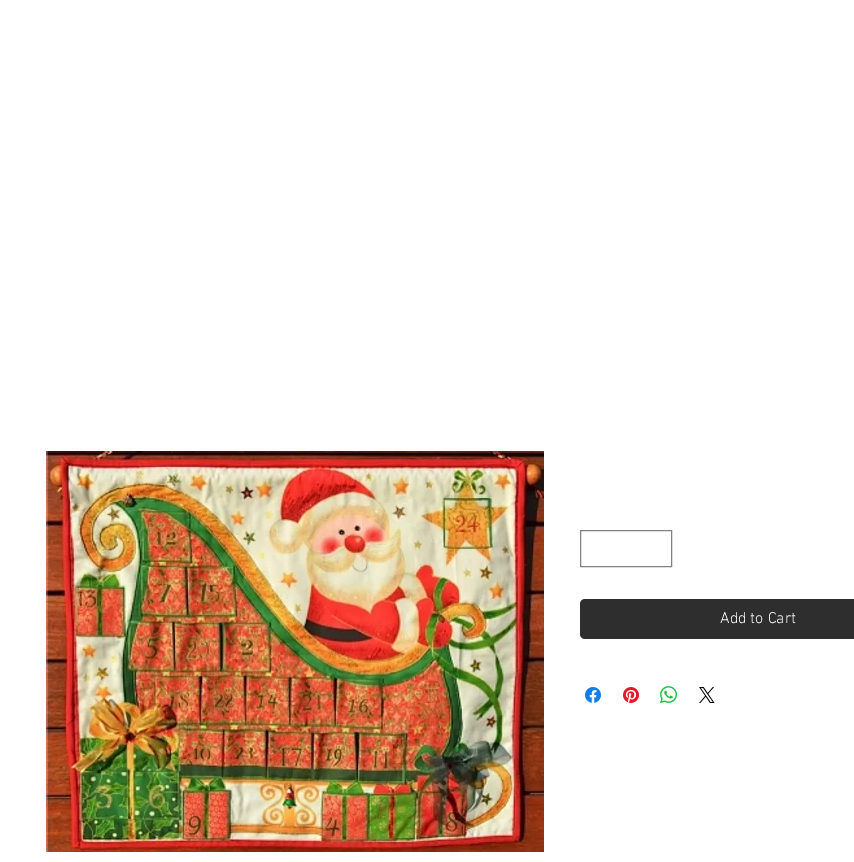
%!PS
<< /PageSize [854 862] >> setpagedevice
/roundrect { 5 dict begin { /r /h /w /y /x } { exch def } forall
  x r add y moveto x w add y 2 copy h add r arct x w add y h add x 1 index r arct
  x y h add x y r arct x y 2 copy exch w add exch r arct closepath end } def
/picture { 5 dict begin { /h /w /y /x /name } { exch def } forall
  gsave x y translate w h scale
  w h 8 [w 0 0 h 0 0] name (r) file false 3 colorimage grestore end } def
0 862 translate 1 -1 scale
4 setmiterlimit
1 setgray
0 0 854 862 rectfill
(img1.rgb) 46 451 498 401 picture
0.51 setgray
580.5 530.5 91 36 rectstroke
0.184 0.18 0.18 setrgbcolor
580 599 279 40 5 roundrect fill
/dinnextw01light-Light [16 0 0 -16 0 0] selectfont
1 setgray
720 623 moveto (Add to Cart) show
(img2.rgb) 585 687 16 16 picture
(img3.rgb) 623 687 16 16 picture
(img4.rgb) 660 686 17 17 picture
(img5.rgb) 699 687 16 16 picture
showpage
